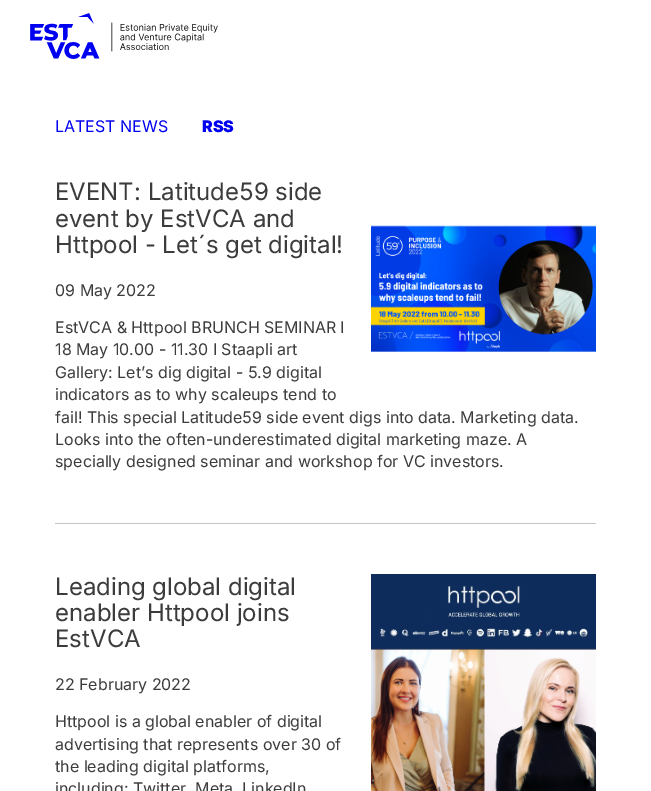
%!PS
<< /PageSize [651 791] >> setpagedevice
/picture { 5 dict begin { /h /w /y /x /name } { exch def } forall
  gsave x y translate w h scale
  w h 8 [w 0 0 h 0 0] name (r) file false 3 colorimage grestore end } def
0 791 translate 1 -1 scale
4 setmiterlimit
1 setgray
0 0 651 791 rectfill
(img1.rgb) 30 13 188 46 picture
/Inter-Regular [16 0 0 -16 0 0] selectfont
0 0 0.941 setrgbcolor
55 132 moveto (LATEST NEWS) show
/Inter-Black [16 0 0 -16 0 0] selectfont
202 132 moveto (RSS) show
0.769 setgray
55 523 541 1 rectfill
/Inter-Regular [24 0 0 -24 0 0] selectfont
0.235 setgray
55 200 moveto (EVENT: Latitude59 side) show
55 227 moveto (event by EstVCA and) show
55 253 moveto (Httpool - Let´s get digital!) show
(img2.rgb) 371 225 225 127 picture
/Inter-Regular [16 0 0 -16 0 0] selectfont
55 296 moveto (09 May 2022) show
55 333 moveto (EstVCA & Httpool BRUNCH SEMINAR I) show
55 355 moveto (18 May 10.00 - 11.30 I Staapli art) show
55 378 moveto (Gallery: Let’s dig digital - 5.9 digital) show
55 400 moveto (indicators as to why scaleups tend to) show
55 423 moveto (fail! This special Latitude59 side event digs into data. Marketing data.) show
55 445 moveto (Looks into the often-underestimated digital marketing maze. A) show
55 467 moveto (specially designed seminar and workshop for VC investors.) show
/Inter-Regular [24 0 0 -24 0 0] selectfont
55 595 moveto (Leading global digital) show
55 621 moveto (enabler Httpool joins) show
55 647 moveto (EstVCA) show
(img3.rgb) 371 574 225 217 picture
/Inter-Regular [16 0 0 -16 0 0] selectfont
55 690 moveto (22 February 2022) show
55 727 moveto (Httpool is a global enabler of digital) show
55 750 moveto (advertising that represents over 30 of) show
55 772 moveto (the leading digital platforms,) show
55 794 moveto (including: Twitter, Meta, LinkedIn) show
showpage
